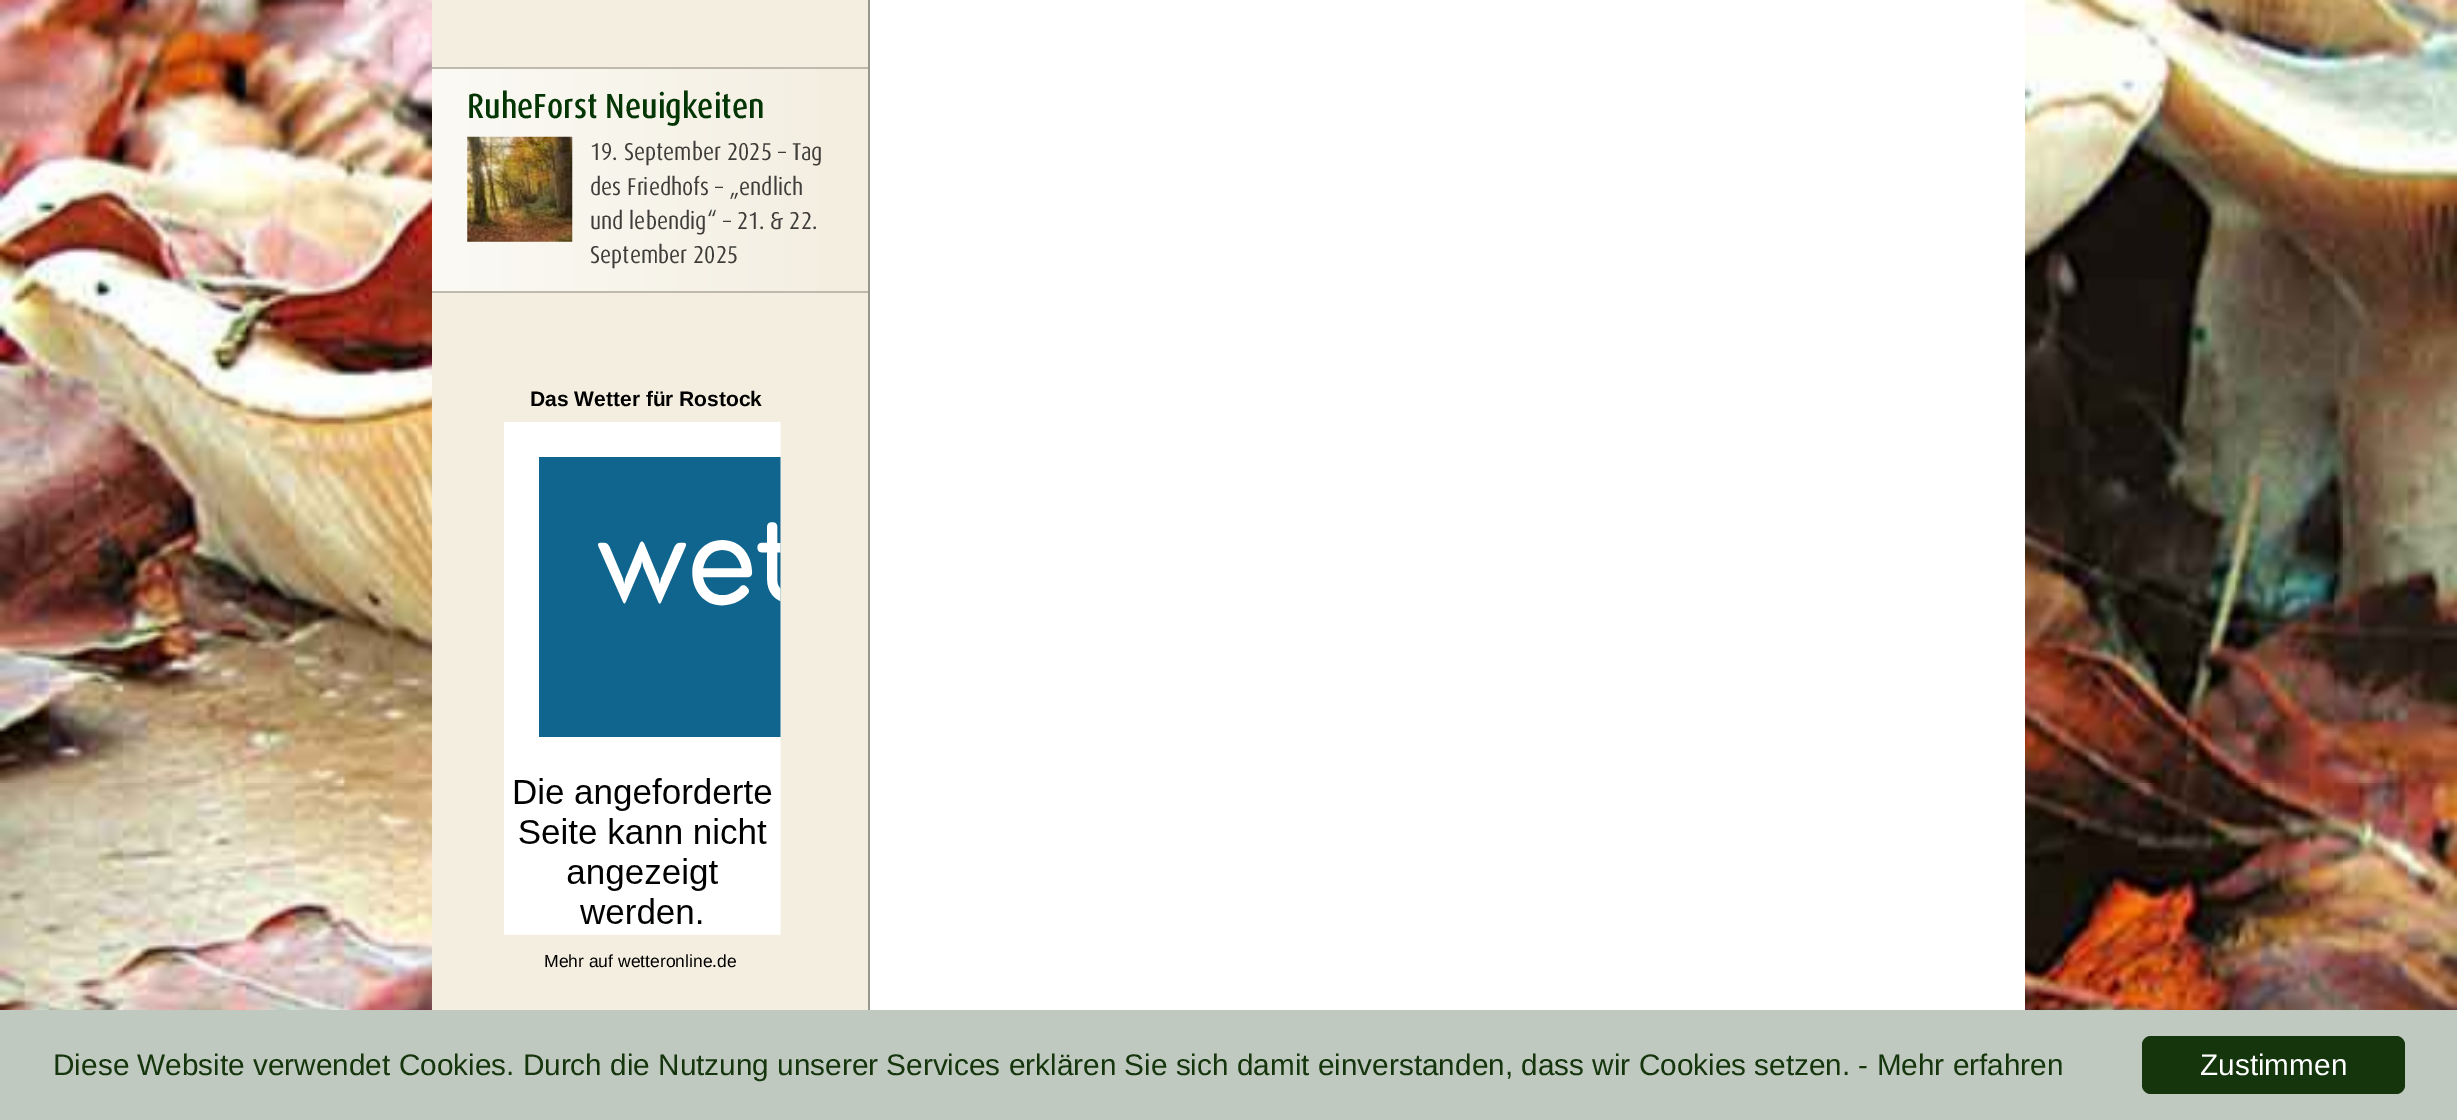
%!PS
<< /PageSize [2457 1120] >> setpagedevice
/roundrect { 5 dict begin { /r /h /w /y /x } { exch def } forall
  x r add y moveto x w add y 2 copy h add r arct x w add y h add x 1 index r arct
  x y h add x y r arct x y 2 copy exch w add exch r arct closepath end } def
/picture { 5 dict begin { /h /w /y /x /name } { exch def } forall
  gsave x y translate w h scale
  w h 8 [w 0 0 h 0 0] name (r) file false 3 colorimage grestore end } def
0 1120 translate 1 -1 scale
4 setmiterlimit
1 setgray
0 0 2457 1120 rectfill
(img1.rgb) 0 0 2457 1010 picture
0.953 0.933 0.875 setrgbcolor
432 0 436 1010 rectfill
0.6 0.588 0.553 setrgbcolor
868 0 2 1010 rectfill
gsave newpath 432 69 moveto 818 69 lineto 818 291 lineto 432 291 lineto closepath clip newpath
<< /ShadingType 2 /ColorSpace /DeviceRGB /Coords [432 179 868 179] /Extend [true true] /Function << /FunctionType 2 /Domain [0 1] /C0 [0.984 0.98 0.961] /C1 [0.953 0.933 0.875] /N 1 >> >> shfill grestore
0.745 0.722 0.678 setrgbcolor
432 67 436 2 rectfill
432 291 436 2 rectfill
/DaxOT-Medium [35 0 0 -35 0 0] selectfont
0.012 0.212 0.016 setrgbcolor
467 118 moveto (RuheForst Neuigkeiten) show
(img2.rgb) 467 136 106 106 picture
/DaxOT-Regular [24.5 0 0 -24.5 0 0] selectfont
0.243 0.239 0.224 setrgbcolor
590 160 moveto (19. September 2025 – Tag) show
590 195 moveto (des Friedhofs – „endlich) show
590 229 moveto (und lebendig“ – 21. & 22.) show
590 263 moveto (September 2025) show
/LiberationSans-Bold [21 0 0 -21 0 0] selectfont
0 setgray
530 406 moveto (Das Wetter für Rostock) show
(img3.rgb) 504 422 277 513 picture
/LiberationSans-Regular [17.5 0 0 -17.5 0 0] selectfont
544 967 moveto (Mehr auf wetteronline.de) show
1 setgray
870 0 1155 1010 rectfill
0.753 0.788 0.753 setrgbcolor
0 1010 2457 110 rectfill
/LiberationSans-Regular [29.75 0 0 -29.75 0 0] selectfont
0.082 0.208 0.051 setrgbcolor
53 1075 moveto (Diese Website verwendet Cookies. Durch die Nutzung unserer Services erklären Sie sich damit einverstanden, dass wir Cookies setzen. - Mehr erfahren) show
2142 1036 263 58 9 roundrect fill
1 setgray
2200 1075 moveto (Zustimmen) show
showpage
